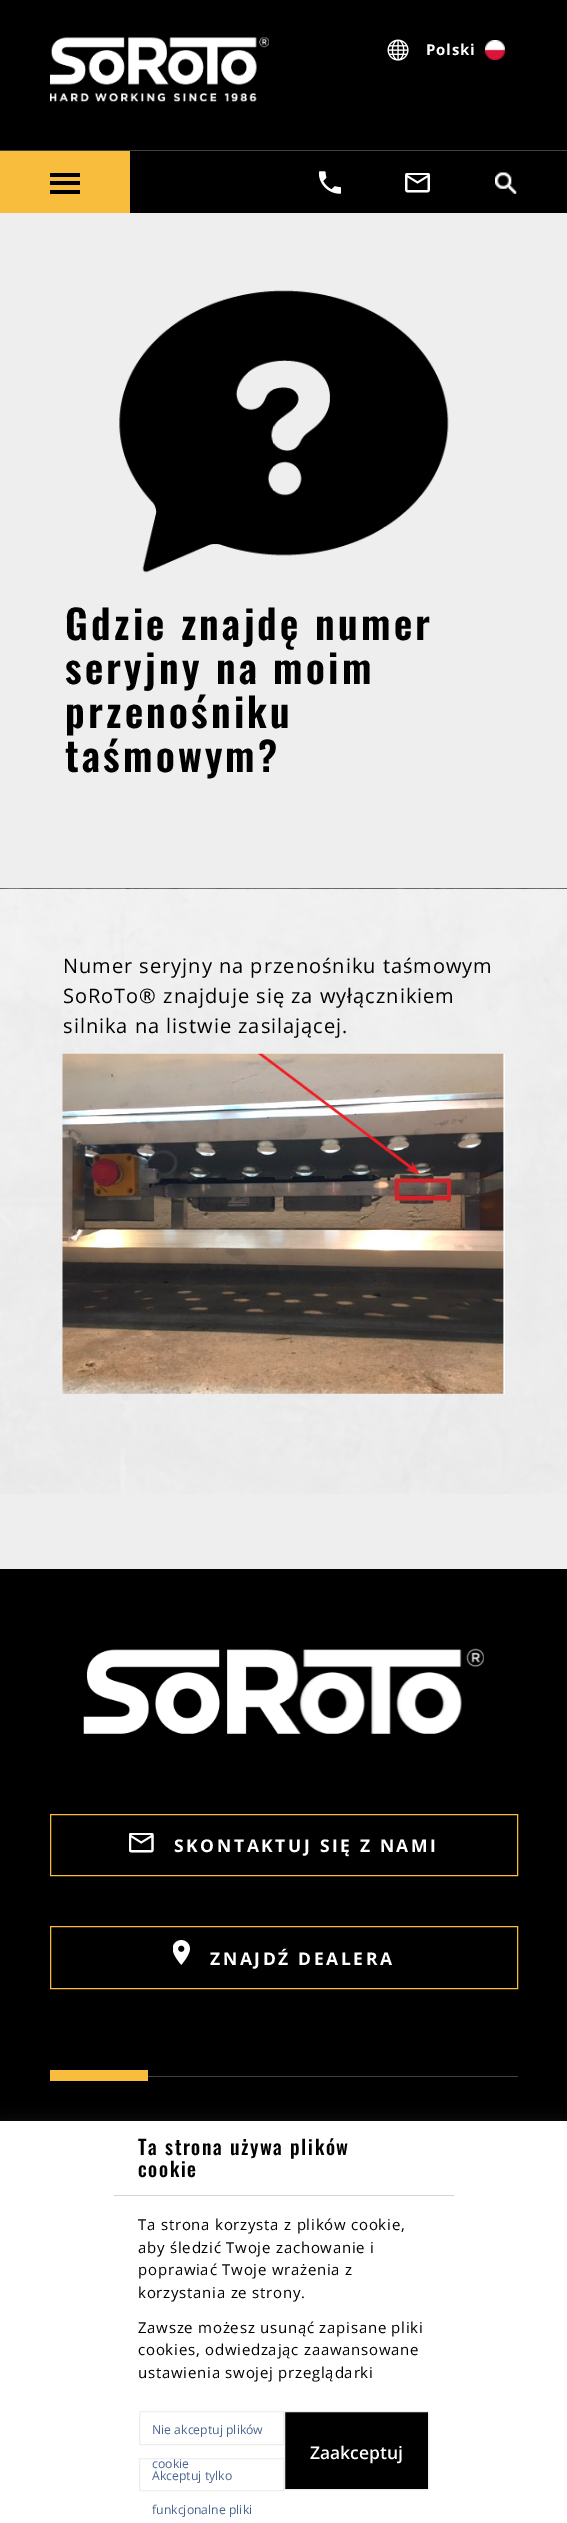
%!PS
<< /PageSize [567 2523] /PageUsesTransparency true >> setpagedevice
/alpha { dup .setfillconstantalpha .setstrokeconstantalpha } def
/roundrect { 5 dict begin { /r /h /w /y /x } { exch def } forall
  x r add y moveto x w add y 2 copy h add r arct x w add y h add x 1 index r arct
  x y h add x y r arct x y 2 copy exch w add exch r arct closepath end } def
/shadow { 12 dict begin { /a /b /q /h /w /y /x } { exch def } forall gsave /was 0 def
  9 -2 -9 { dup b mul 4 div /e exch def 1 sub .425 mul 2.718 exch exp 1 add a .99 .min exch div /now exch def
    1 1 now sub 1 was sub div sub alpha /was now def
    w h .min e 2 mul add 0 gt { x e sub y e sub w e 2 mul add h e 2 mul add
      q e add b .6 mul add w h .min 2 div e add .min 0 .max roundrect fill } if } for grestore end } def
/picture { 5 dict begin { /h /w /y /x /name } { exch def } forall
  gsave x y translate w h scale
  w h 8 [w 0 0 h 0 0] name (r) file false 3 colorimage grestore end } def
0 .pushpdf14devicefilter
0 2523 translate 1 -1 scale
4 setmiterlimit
0 setgray
0 0 567 2523 rectfill
(img1.rgb) 50 37 219 65 picture
(img2.rgb) 387 39 22 22 picture
/OpenSans-Bold [15 0 0 -15 0 0] selectfont
1 setgray
426 55 moveto 0.75 0 (Polski) ashow
(img3.rgb) 485 40 20 20 picture
0.259 setgray
0 150 567 1 rectfill
0.973 0.741 0.235 setrgbcolor
0 151 130 62 rectfill
0 setgray
50 173 30 4 rectfill
50 181 30 4 rectfill
50 190 30 4 rectfill
(img4.rgb) 319 171 22 23 picture
(img5.rgb) 405 173 25 20 picture
(img6.rgb) 495 172 22 22 picture
0.933 setgray
0 213 567 675 rectfill
(img7.rgb) 119 290 330 283 picture
/Oswald-SemiBold [40 0 0 -40 0 0] selectfont
0 setgray
65 640 moveto 3.25 0 (Gdzie znajdę numer) ashow
65 684 moveto 3.25 0 (seryjny na moim) ashow
65 728 moveto 3.25 0 (przenośniku) ashow
65 772 moveto 3.25 0 (taśmowym?) ashow
0.933 setgray
0 1494 567 75 rectfill
(img8.rgb) 0 888 567 606 picture
/OpenSans-Regular [20 0 0 -20 0 0] selectfont
0 setgray
63 973 moveto 1 0 (Numer seryjny na przenośniku taśmowym) ashow
63 1003 moveto 1 0 (SoRoTo® znajduje się za wyłącznikiem) ashow
63 1033 moveto 1 0 (silnika na listwie zasilającej.) ashow
(img9.rgb) 62 1053 443 341 picture
(img10.rgb) 83 1648 401 86 picture
0.973 0.741 0.235 setrgbcolor
50.5 1814.5 467 61 rectstroke
(img11.rgb) 129 1833 25 20 picture
/OpenSans-Bold [17.5 0 0 -17.5 0 0] selectfont
1 setgray
174 1852 moveto 2.6 0 (SKONTAKTUJ SIĘ Z NAMI) ashow
0.973 0.741 0.235 setrgbcolor
50.5 1926.5 467 62 rectstroke
(img12.rgb) 173 1940 17 25 picture
1 setgray
210 1965 moveto 2.6 0 (ZNAJDŹ DEALERA) ashow
0.259 setgray
148 2076 370 1 rectfill
0.973 0.741 0.235 setrgbcolor
50 2070 98 11 rectfill
0.071 setgray
0 2121 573 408 0 9 1 shadow
1 setgray
0 2121 567 402 rectfill
0.827 setgray
114 2195 340 1 rectfill
/Oswald-Medium [20 0 0 -20 0 0] selectfont
0 setgray
138 2155 moveto 1.6 0 (Ta strona używa plików) ashow
138 2177 moveto 1.6 0 (cookie) ashow
/OpenSans-Regular [15 0 0 -15 0 0] selectfont
138 2230 moveto 0.75 0 (Ta strona korzysta z plików cookie,) ashow
138 2253 moveto 0.75 0 (aby śledzić Twoje zachowanie i) ashow
138 2275 moveto 0.75 0 (poprawiać Twoje wrażenia z) ashow
138 2298 moveto 0.75 0 (korzystania ze strony.) ashow
138 2333 moveto 0.75 0 (Zawsze możesz usunąć zapisane pliki) ashow
138 2355 moveto 0.75 0 (cookies, odwiedzając zaawansowane) ashow
138 2378 moveto 0.75 0 (ustawienia swojej przeglądarki) ashow
0.933 setgray
139.5 2411.5 144 33 rectstroke
/OpenSans-Regular [12.25 0 0 -12.25 0 0] selectfont
0.282 0.396 0.569 setrgbcolor
152 2434 moveto (Nie akceptuj plików) show
152 2468 moveto (cookie) show
0.933 setgray
139.5 2458.5 144 32 rectstroke
0.282 0.396 0.569 setrgbcolor
152 2480 moveto (Akceptuj tylko) show
152 2514 moveto (funkcjonalne pliki) show
0 setgray
newpath 284.5 2411.5 moveto 428.5 2411.5 lineto 428.5 2489.5 lineto 284.5 2489.5 lineto closepath gsave fill grestore
0.933 setgray
stroke
/OpenSans-SemiBold [17.5 0 0 -17.5 0 0] selectfont
1 setgray
310 2459 moveto (Zaakceptuj) show
.poppdf14devicefilter showpage
